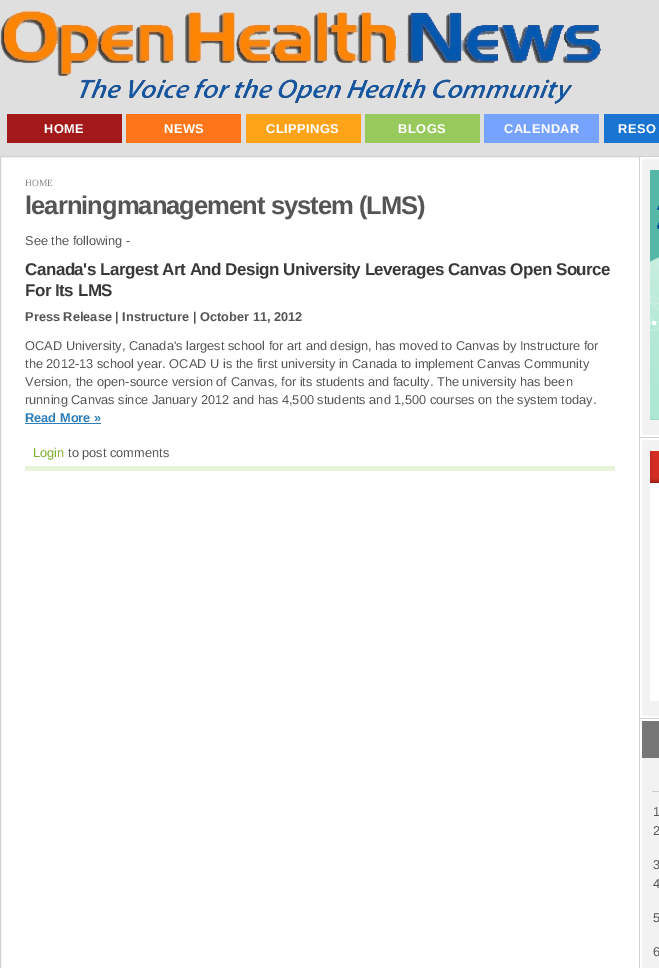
%!PS
<< /PageSize [659 968] >> setpagedevice
/picture { 5 dict begin { /h /w /y /x /name } { exch def } forall
  gsave x y translate w h scale
  w h 8 [w 0 0 h 0 0] name (r) file false 3 colorimage grestore end } def
0 968 translate 1 -1 scale
4 setmiterlimit
0.875 setgray
0 0 659 968 rectfill
(img1.rgb) 0 10 601 94 picture
0.639 0.098 0.098 setrgbcolor
7 114 115 29 rectfill
/LiberationSans-Bold [12.8 0 0 -12.8 0 0] selectfont
1 setgray
44 133 moveto 0.5 0 (HOME) ashow
1 0.459 0.102 setrgbcolor
126 114 115 29 rectfill
1 setgray
164 133 moveto 0.5 0 (NEWS) ashow
1 0.643 0.094 setrgbcolor
246 114 115 29 rectfill
1 setgray
266 133 moveto 0.5 0 (CLIPPINGS) ashow
0.596 0.788 0.361 setrgbcolor
365 114 115 29 rectfill
1 setgray
398 133 moveto 0.5 0 (BLOGS) ashow
0.463 0.639 1 setrgbcolor
484 114 115 29 rectfill
1 setgray
504 133 moveto 0.5 0 (CALENDAR) ashow
0.102 0.459 0.824 setrgbcolor
604 114 55 29 rectfill
1 setgray
618 133 moveto 0.5 0 (RESO) ashow
1 157 638 811 rectfill
0.82 setgray
0.5 156.5 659 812 rectstroke
/LiberationSerif-Regular [9.5 0 0 -9.5 0 0] selectfont
0.525 setgray
25 186 moveto (HOME) show
/LiberationSans-Bold [25.6 0 0 -25.6 0 0] selectfont
0.333 setgray
25 214 moveto -1 0 (learningmanagement system \(LMS\)) ashow
/LiberationSans-Regular [12.8 0 0 -12.8 0 0] selectfont
25 245 moveto (See the following -) show
/LiberationSans-Bold [17 0 0 -17 0 0] selectfont
0.22 setgray
25 275 moveto -0.5 0 (Canada's Largest Art And Design University Leverages Canvas Open Source) ashow
25 296 moveto -0.5 0 (For Its LMS) ashow
/LiberationSans-Bold [12.8 0 0 -12.8 0 0] selectfont
0.333 setgray
25 321 moveto (Press Release | Instructure | October 11, 2012) show
/LiberationSans-Regular [12.8 0 0 -12.8 0 0] selectfont
25 350 moveto (OCAD University, Canada's largest school for art and design, has moved to Canvas by Instructure for) show
25 368 moveto (the 2012-13 school year. OCAD U is the first university in Canada to implement Canvas Community) show
25 386 moveto (Version, the open-source version of Canvas, for its students and faculty. The university has been) show
25 404 moveto (running Canvas since January 2012 and has 4,500 students and 1,500 courses on the system today.) show
/LiberationSans-Bold [12.8 0 0 -12.8 0 0] selectfont
0.18 0.49 0.725 setrgbcolor
25 422 moveto (Read More ») show
25 423 76 1 rectfill
0.906 0.953 0.843 setrgbcolor
25 466 590 5 rectfill
/LiberationSans-Regular [12.8 0 0 -12.8 0 0] selectfont
0.498 0.682 0.184 setrgbcolor
33 457 moveto (Login) show
0.333 setgray
68 457 moveto (to post comments) show
0.82 setgray
639 157 1 811 rectfill
0.949 setgray
newpath 641 158 moveto 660 158 lineto 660 436 lineto 641 436 lineto closepath gsave fill grestore
1 setgray
2 setlinewidth
stroke
(img2.rgb) 650 170 9 250 picture
0.82 setgray
640 437 19 1 rectfill
0.949 setgray
newpath 641 439 moveto 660 439 lineto 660 717 lineto 641 717 lineto closepath gsave fill grestore
1 setgray
stroke
(img3.rgb) 650 451 9 250 picture
0.949 setgray
642 758 17 210 rectfill
0.82 setgray
640 718 19 1 rectfill
1 setgray
641 720 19 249 rectstroke
0.467 setgray
642 721 17 37 rectfill
0.8 setgray
652 791 7 1 rectfill
0.333 setgray
653 816 moveto (1) show
653 835 moveto (2) show
653 869 moveto (3) show
653 888 moveto (4) show
653 922 moveto (5) show
653 956 moveto (6) show
showpage
